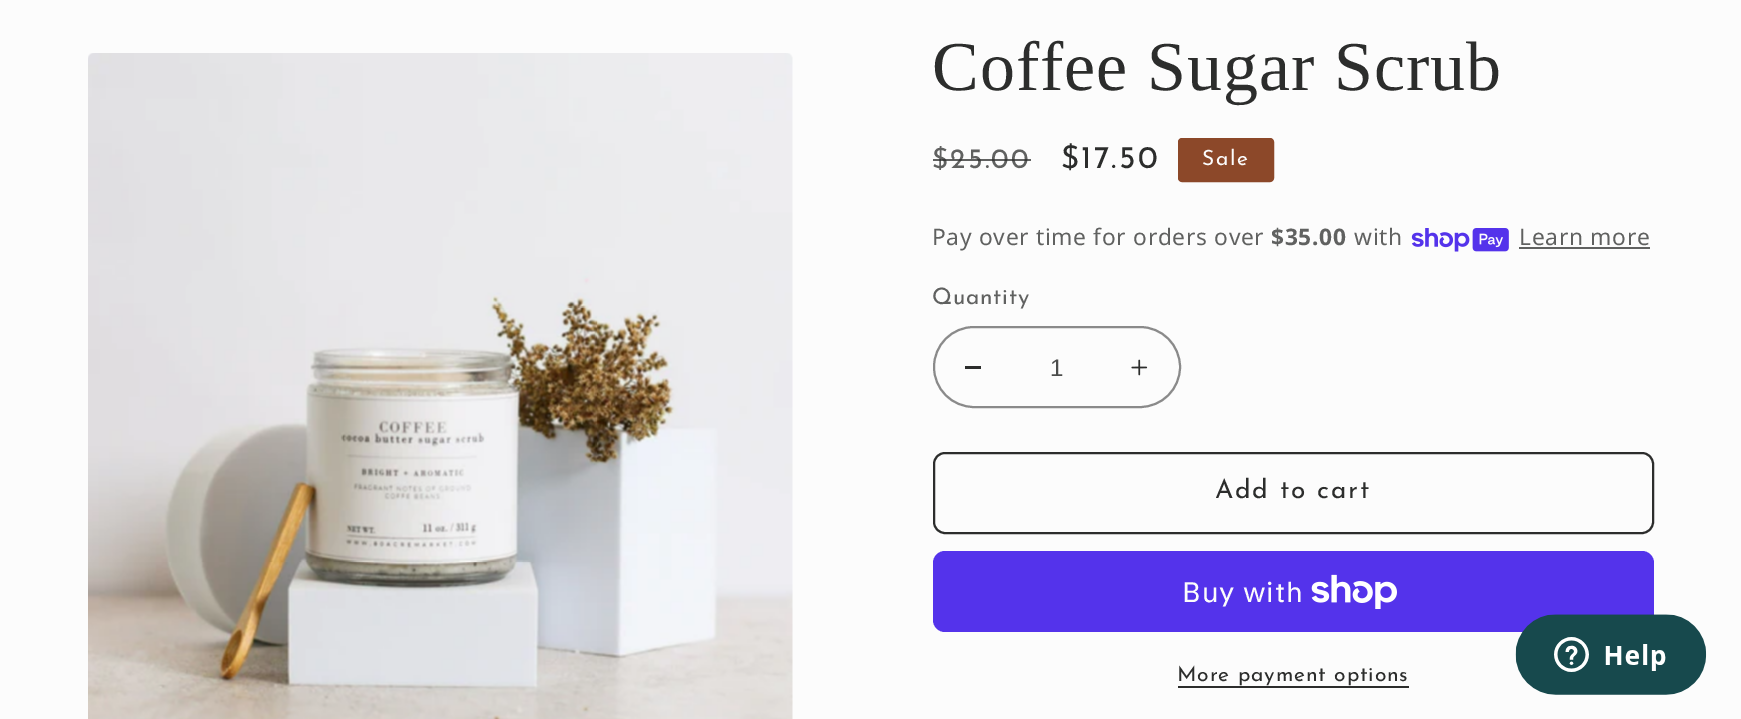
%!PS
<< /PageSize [1741 719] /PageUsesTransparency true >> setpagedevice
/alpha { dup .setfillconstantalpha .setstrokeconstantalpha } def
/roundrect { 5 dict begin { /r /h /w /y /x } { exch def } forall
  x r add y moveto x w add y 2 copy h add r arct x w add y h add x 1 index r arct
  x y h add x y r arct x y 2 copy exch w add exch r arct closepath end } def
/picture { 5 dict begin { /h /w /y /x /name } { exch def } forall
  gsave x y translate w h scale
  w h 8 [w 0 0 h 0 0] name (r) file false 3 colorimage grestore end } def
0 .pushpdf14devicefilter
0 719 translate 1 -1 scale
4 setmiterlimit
0.988 setgray
0 0 1741 719 rectfill
(img1.rgb) 88 53 705 666 picture
/LiberationSerif-Regular [70 0 0 -70 0 0] selectfont
0.173 0.176 0.173 setrgbcolor
932 90 moveto 1 0 (Coffee Sugar Scrub) ashow
/JosefinSans-Regular [28 0 0 -28 0 0] selectfont
0.376 0.38 0.376 setrgbcolor
932 168 moveto 2.25 0 ($25.00) ashow
0.75 alpha
0.173 0.176 0.173 setrgbcolor
933 159 98 2 rectfill
/JosefinSans-Regular [31.5 0 0 -31.5 0 0] selectfont
1 alpha
1061 168 moveto 2.25 0 ($17.50) ashow
0.549 0.282 0.161 setrgbcolor
1179 139 94 42 3 roundrect gsave fill grestore
2 setlinewidth
stroke
/JosefinSans-Regular [21 0 0 -21 0 0] selectfont
0.988 setgray
1202 165 moveto 1.75 0 (Sale) ashow
/NotoSans-Regular [22.75 0 0 -22.75 0 0] selectfont
0.376 0.38 0.376 setrgbcolor
932 245 moveto 0.7 0 (Pay over time for orders over) ashow
/NotoSans-Bold [22.75 0 0 -22.75 0 0] selectfont
1271 245 moveto 0.7 0 ($35.00) ashow
/NotoSans-Regular [22.75 0 0 -22.75 0 0] selectfont
1354 245 moveto 0.7 0 (with) ashow
(img2.rgb) 1411 228 98 24 picture
1519 245 moveto 0.7 0 (Learn more) ashow
1519 247 131 2 rectfill
/JosefinSans-Regular [22.75 0 0 -22.75 0 0] selectfont
932 304 moveto 0.7 0 (Quantity) ashow
0.173 0.176 0.173 setrgbcolor
965 366 16 3 rectfill
(img3.rgb) 1131 359 17 17 picture
0.541 setgray
934 327 246 80 40 roundrect stroke
/LiberationSans-Regular [24 0 0 -24 0 0] selectfont
0.294 0.298 0.294 setrgbcolor
1050 376 moveto (1) show
0.173 0.176 0.173 setrgbcolor
934 453 719 80 11 roundrect stroke
/JosefinSans-Regular [26.25 0 0 -26.25 0 0] selectfont
1215 498 moveto 1.75 0 (Add to cart) ashow
0.329 0.2 0.922 setrgbcolor
933 551 721 81 12 roundrect fill
/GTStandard-Regular [28 0 0 -28 0 0] selectfont
0.988 setgray
1182 602 moveto 1 0 (Buy with) ashow
(img4.rgb) 1311 574 86 35 picture
/JosefinSans-Regular [21 0 0 -21 0 0] selectfont
0.173 0.176 0.173 setrgbcolor
1177 681 moveto 0.9 0 (More payment options) ashow
1178 686 231 2 rectfill
(img5.rgb) 1515 614 192 81 picture
.poppdf14devicefilter showpage
